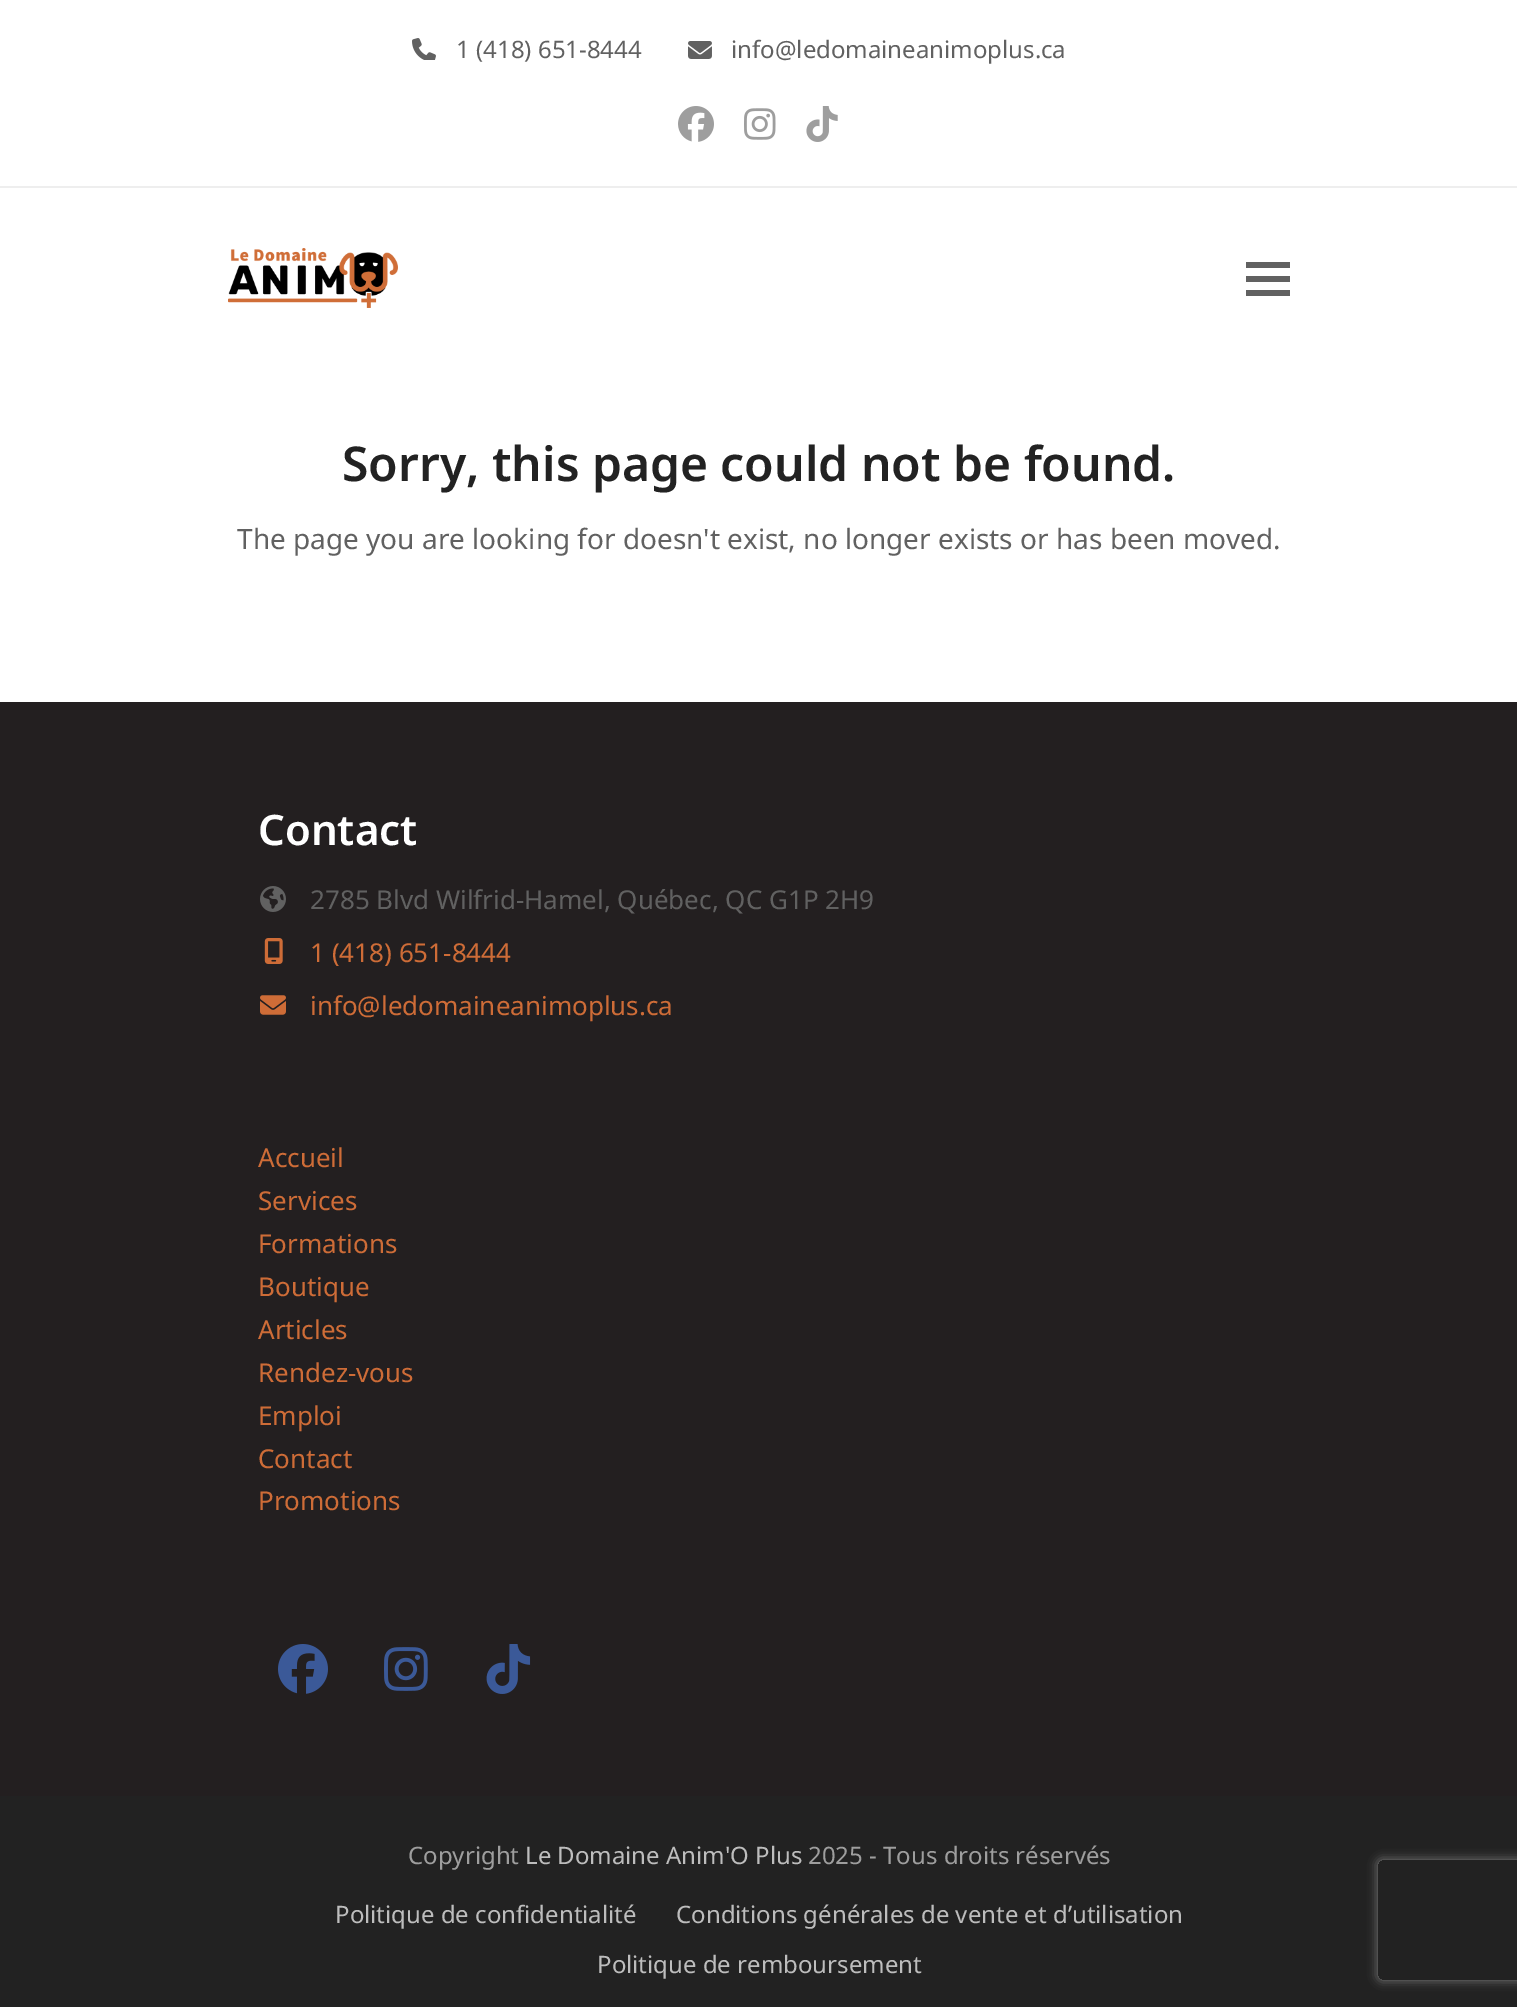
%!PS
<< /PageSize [1517 2007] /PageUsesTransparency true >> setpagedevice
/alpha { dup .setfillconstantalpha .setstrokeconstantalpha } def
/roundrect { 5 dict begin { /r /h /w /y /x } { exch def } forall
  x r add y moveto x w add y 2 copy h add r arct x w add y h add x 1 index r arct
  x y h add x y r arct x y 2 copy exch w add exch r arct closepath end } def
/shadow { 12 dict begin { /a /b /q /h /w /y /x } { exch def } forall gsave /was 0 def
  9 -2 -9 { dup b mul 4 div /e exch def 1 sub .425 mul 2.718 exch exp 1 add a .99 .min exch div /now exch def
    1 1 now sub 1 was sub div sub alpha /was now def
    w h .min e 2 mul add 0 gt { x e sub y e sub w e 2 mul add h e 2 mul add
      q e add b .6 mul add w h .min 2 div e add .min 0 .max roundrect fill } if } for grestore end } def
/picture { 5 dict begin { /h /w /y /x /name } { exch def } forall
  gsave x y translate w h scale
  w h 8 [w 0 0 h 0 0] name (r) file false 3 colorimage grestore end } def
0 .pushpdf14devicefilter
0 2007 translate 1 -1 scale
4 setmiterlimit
1 setgray
0 0 1517 2007 rectfill
0.933 setgray
0 186 1517 2 rectfill
(img1.rgb) 412 38 24 22 picture
/NotoSans-Regular [24 0 0 -24 0 0] selectfont
0.38 setgray
456 58 moveto (1 \(418\) 651-8444) show
(img2.rgb) 688 41 24 18 picture
731 58 moveto (info@ledomaineanimoplus.ca) show
(img3.rgb) 678 106 36 36 picture
(img4.rgb) 744 108 32 32 picture
(img5.rgb) 806 106 32 36 picture
(img6.rgb) 228 248 170 60 picture
1246 276 44 6 rectfill
1246 262 44 6 rectfill
1246 290 44 6 rectfill
/NotoSans-SemiBold [48 0 0 -48 0 0] selectfont
0.133 setgray
342 481 moveto (Sorry, this page could not be found.) show
/NotoSans-Regular [28 0 0 -28 0 0] selectfont
0.38 setgray
237 549 moveto (The page you are looking for doesn't exist, no longer exists or has been moved.) show
0.137 0.122 0.125 setrgbcolor
0 702 1517 1094 rectfill
/NotoSans-SemiBold [42 0 0 -42 0 0] selectfont
1 setgray
258 845 moveto (Contact) show
(img7.rgb) 260 886 26 26 picture
/NotoSans-Regular [26 0 0 -26 0 0] selectfont
0.38 setgray
310 909 moveto (2785 Blvd Wilfrid-Hamel, Québec, QC G1P 2H9) show
(img8.rgb) 264 938 19 26 picture
0.808 0.424 0.216 setrgbcolor
310 962 moveto (1 \(418\) 651-8444) show
(img9.rgb) 260 995 26 20 picture
310 1015 moveto (info@ledomaineanimoplus.ca) show
258 1167 moveto (Accueil) show
258 1210 moveto (Services) show
258 1253 moveto (Formations) show
258 1296 moveto (Boutique) show
258 1339 moveto (Articles) show
258 1382 moveto (Rendez-vous) show
258 1425 moveto (Emploi) show
258 1468 moveto (Contact) show
258 1510 moveto (Promotions) show
(img10.rgb) 278 1644 50 50 picture
(img11.rgb) 384 1647 44 44 picture
(img12.rgb) 486 1644 45 50 picture
0.133 setgray
0 1796 1517 211 rectfill
/NotoSans-Regular [24 0 0 -24 0 0] selectfont
0.62 setgray
408 1864 moveto (Copyright) show
0.741 setgray
525 1864 moveto (Le Domaine Anim'O Plus) show
0.62 setgray
808 1864 moveto (2025 - Tous droits réservés) show
0.741 setgray
335 1923 moveto (Politique de confidentialité) show
676 1923 moveto (Conditions générales de vente et d’utilisation) show
597 1973 moveto (Politique de remboursement) show
gsave
newpath 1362 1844 moveto 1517 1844 lineto 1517 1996 lineto 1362 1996 lineto closepath 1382 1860 moveto 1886 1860 lineto 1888 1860 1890 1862 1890 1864 curveto 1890 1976 lineto 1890 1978 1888 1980 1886 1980 curveto 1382 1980 lineto 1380 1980 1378 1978 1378 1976 curveto 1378 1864 lineto 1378 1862 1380 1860 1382 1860 curveto closepath eoclip newpath
0.502 setgray
1378 1860 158 120 4 5 1 shadow
grestore
.poppdf14devicefilter showpage
